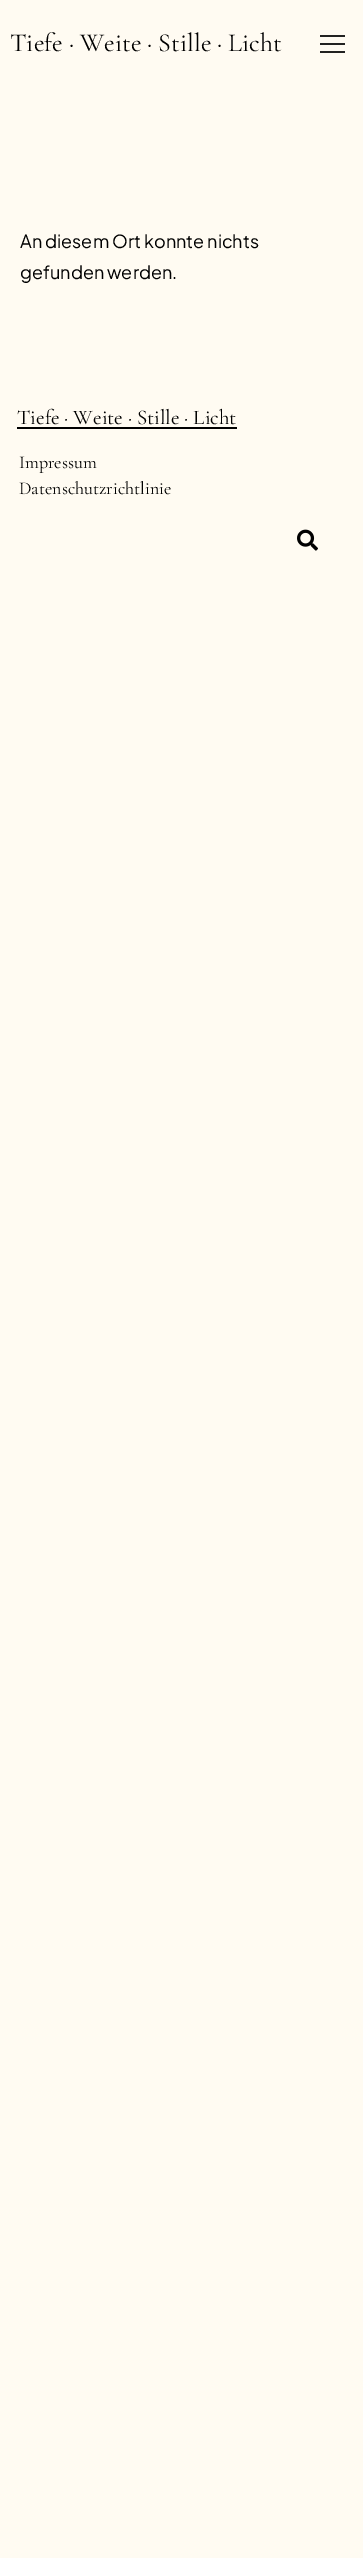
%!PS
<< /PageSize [363 2558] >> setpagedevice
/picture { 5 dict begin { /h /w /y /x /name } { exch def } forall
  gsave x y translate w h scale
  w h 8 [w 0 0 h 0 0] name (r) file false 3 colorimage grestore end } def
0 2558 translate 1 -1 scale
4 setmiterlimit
1 0.984 0.949 setrgbcolor
0 0 363 2558 rectfill
/CormorantGaramond-Regular [26 0 0 -26 0 0] selectfont
0 setgray
10 51 moveto (Tiefe · Weite · Stille · Licht) show
0.133 0.133 0.129 setrgbcolor
320 35 25 2 rectfill
320 43 25 2 rectfill
320 51 25 2 rectfill
/PlusJakartaSans-Regular [18 0 0 -18 0 0] selectfont
0 setgray
20 248 moveto (An diesem Ort konnte nichts) show
20 279 moveto (gefunden werden.) show
/CormorantGaramond-Regular [21 0 0 -21 0 0] selectfont
17 424 moveto (Tiefe · Weite · Stille · Licht) show
17 427 220 2 rectfill
/CormorantGaramond-Regular [18 0 0 -18 0 0] selectfont
19 468 moveto (Impressum) show
19 494 moveto (Datenschutzrichtlinie) show
(img1.rgb) 297 529 21 22 picture
showpage
